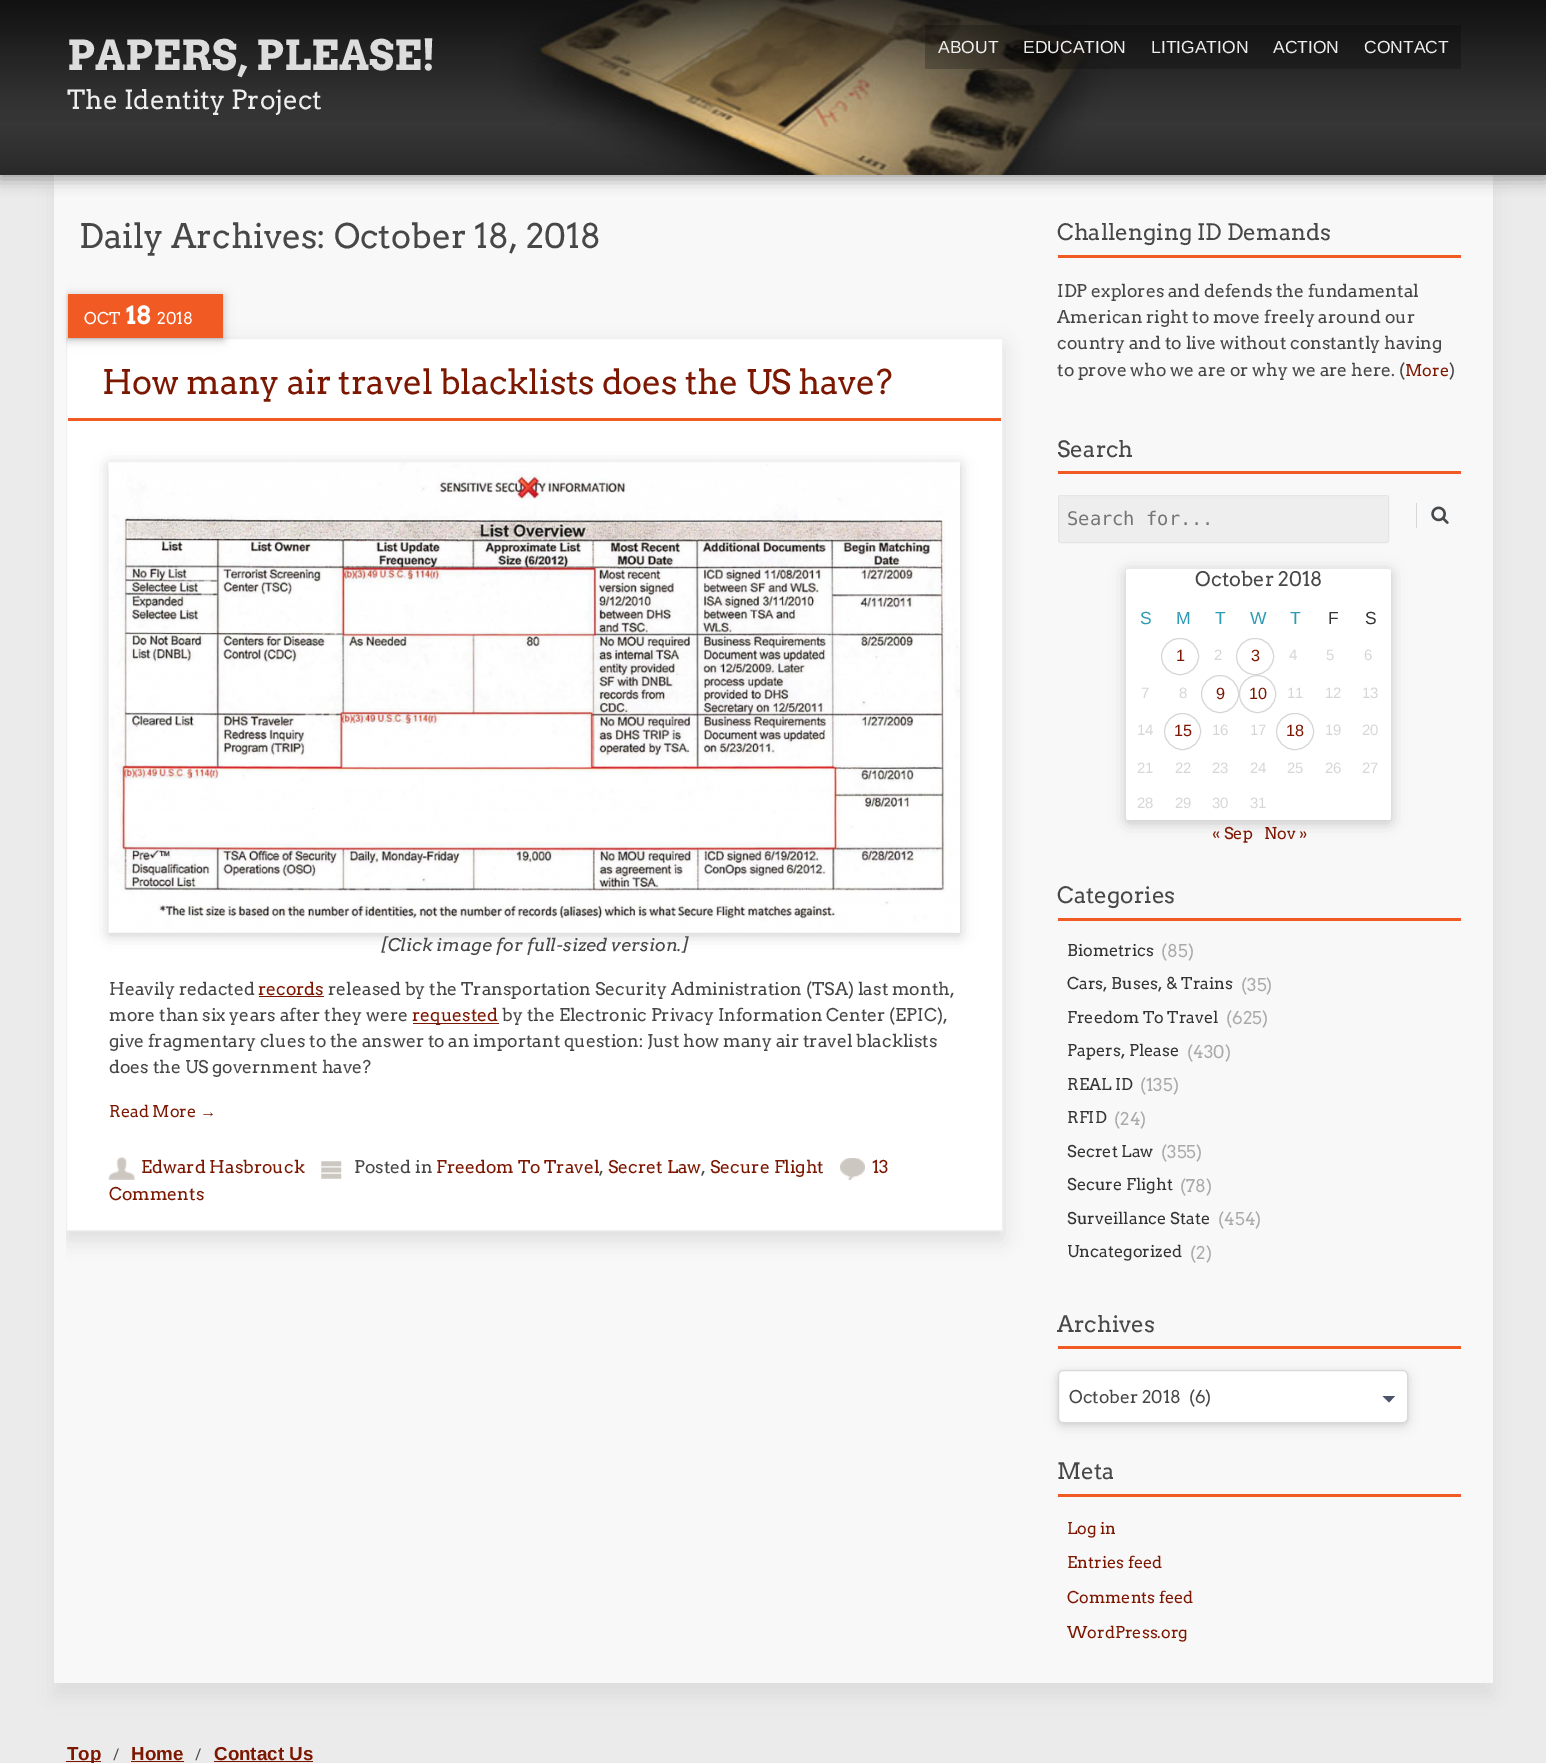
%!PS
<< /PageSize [1546 1763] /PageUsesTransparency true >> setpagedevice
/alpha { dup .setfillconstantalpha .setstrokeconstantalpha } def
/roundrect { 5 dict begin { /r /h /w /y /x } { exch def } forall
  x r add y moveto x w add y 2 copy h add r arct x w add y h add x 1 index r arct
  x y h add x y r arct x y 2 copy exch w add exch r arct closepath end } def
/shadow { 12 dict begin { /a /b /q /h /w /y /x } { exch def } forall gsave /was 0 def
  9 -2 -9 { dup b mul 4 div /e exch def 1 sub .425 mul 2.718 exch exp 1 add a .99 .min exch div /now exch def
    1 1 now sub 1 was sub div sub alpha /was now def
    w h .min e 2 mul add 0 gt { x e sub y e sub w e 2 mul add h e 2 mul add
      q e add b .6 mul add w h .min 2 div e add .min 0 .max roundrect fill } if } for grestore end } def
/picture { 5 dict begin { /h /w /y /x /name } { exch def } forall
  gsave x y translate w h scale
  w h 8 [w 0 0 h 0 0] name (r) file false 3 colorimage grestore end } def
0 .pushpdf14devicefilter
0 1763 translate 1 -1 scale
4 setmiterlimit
0.922 setgray
0 0 1546 1763 rectfill
0 setgray
54 189 1439 1507 0 10.5 0.05 shadow
0.973 setgray
54 175 1439 1508 rectfill
0 setgray
0 4 1546 175 0 7 0.17 shadow
0 4 1546 175 0 8 0.2 shadow
(img1.rgb) 0 0 1546 175 picture
/Arvo-Bold [41.25 0 0 -41.25 0 0] selectfont
0.867 setgray
67 70 moveto (PAPERS, PLEASE!) show
/Arvo-Regular [26.25 0 0 -26.25 0 0] selectfont
0.933 setgray
67 109 moveto (The Identity Project) show
0.23 alpha
0 setgray
925 25 85 44 rectfill
/LiberationSans-Regular [17.5 0 0 -17.5 0 0] selectfont
1 alpha
0.933 setgray
938 53 moveto (ABOUT) show
0.23 alpha
0 setgray
1010 25 129 44 rectfill
1 alpha
0.933 setgray
1023 53 moveto (EDUCATION) show
0.23 alpha
0 setgray
1139 25 122 44 rectfill
1 alpha
0.933 setgray
1151 53 moveto (LITIGATION) show
0.23 alpha
0 setgray
1261 25 92 44 rectfill
1 alpha
0.933 setgray
1273 53 moveto (ACTION) show
0.23 alpha
0 setgray
1353 25 108 44 rectfill
1 alpha
0.933 setgray
1364 53 moveto (CONTACT) show
/Arvo-Regular [33.75 0 0 -33.75 0 0] selectfont
0.278 setgray
79 248 moveto (Daily Archives: October 18, 2018) show
gsave
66 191 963 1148 rectclip
0 setgray
66 345 937 894 0 12.5 0.05 shadow
66 348 937 893 0 10.5 0.05 shadow
grestore
1 setgray
newpath 66.5 338.5 moveto 1002.5 338.5 lineto 1002.5 1230.5 lineto 66.5 1230.5 lineto closepath gsave fill grestore
0.941 setgray
stroke
gsave
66 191 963 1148 rectclip
0 setgray
68 296 155 44 0 6 0.12 shadow
grestore
0 setgray
68 296 155 44 0 3 0.16 shadow
0.945 0.353 0.137 setrgbcolor
68 294 155 44 rectfill
/Arvo-Regular [16.25 0 0 -16.25 0 0] selectfont
1 setgray
84 324 moveto (OCT) show
/Arvo-Bold [25 0 0 -25 0 0] selectfont
126 324 moveto (18) show
/Arvo-Regular [16.25 0 0 -16.25 0 0] selectfont
157 324 moveto (2018) show
0.945 0.353 0.137 setrgbcolor
68 418 933 3 rectfill
/Arvo-Regular [33.75 0 0 -33.75 0 0] selectfont
0.486 0.09 0.004 setrgbcolor
102 394 moveto -0.2 0 (How many air travel blacklists does the US have?) ashow
0 setgray
109 465 851 470 0 8 0.12 shadow
109 465 851 470 0 4.5 0.07 shadow
(img2.rgb) 108 462 852 471 picture
/Arvo-Italic [17.5 0 0 -17.5 0 0] selectfont
0.278 setgray
381 951 moveto ([Click image for full-sized version.]) show
/Arvo-Regular [17.5 0 0 -17.5 0 0] selectfont
109 995 moveto (Heavily redacted) show
0.486 0.09 0.004 setrgbcolor
258 995 moveto (records) show
259 996 65 1 rectfill
0.278 setgray
328 995 moveto (released by the Transportation Security Administration \(TSA\) last month,) show
109 1021 moveto (more than six years after they were) show
0.486 0.09 0.004 setrgbcolor
413 1023 86 1 rectfill
412 1021 moveto (requested) show
0.278 setgray
502 1021 moveto (by the Electronic Privacy Information Center \(EPIC\),) show
109 1047 moveto (give fragmentary clues to the answer to an important question: Just how many air travel blacklists) show
109 1073 moveto (does the US government have?) show
/Arvo-Regular [16.25 0 0 -16.25 0 0] selectfont
0.486 0.09 0.004 setrgbcolor
109 1117 moveto (Read More) show
/LiberationSerif-Regular [16.25 0 0 -16.25 0 0] selectfont
200 1117 moveto (→) show
(img3.rgb) 108 1157 27 23 picture
/Arvo-Regular [17.5 0 0 -17.5 0 0] selectfont
141 1173 moveto (Edward Hasbrouck) show
(img4.rgb) 321 1161 21 18 picture
0.278 setgray
354 1173 moveto (Posted in) show
0.486 0.09 0.004 setrgbcolor
436 1173 moveto (Freedom To Travel) show
0.278 setgray
599 1173 moveto (,) show
0.486 0.09 0.004 setrgbcolor
608 1173 moveto (Secret Law) show
0.278 setgray
701 1173 moveto (,) show
0.486 0.09 0.004 setrgbcolor
710 1173 moveto (Secure Flight) show
(img5.rgb) 840 1158 25 22 picture
872 1173 moveto (13) show
109 1200 moveto (Comments) show
0.945 0.353 0.137 setrgbcolor
1058 255 403 3 rectfill
/Arvo-Regular [22.5 0 0 -22.5 0 0] selectfont
0.278 setgray
1057 240 moveto (Challenging ID Demands) show
/Arvo-Regular [17.5 0 0 -17.5 0 0] selectfont
1057 297 moveto (IDP explores and defends the fundamental) show
1057 323 moveto (American right to move freely around our) show
1057 349 moveto (country and to live without constantly having) show
1057 376 moveto (to prove who we are or why we are here. \() show
/Arvo-Regular [16.25 0 0 -16.25 0 0] selectfont
0.486 0.09 0.004 setrgbcolor
1405 376 moveto (More) show
/Arvo-Regular [17.5 0 0 -17.5 0 0] selectfont
0.278 setgray
1449 376 moveto (\)) show
0.945 0.353 0.137 setrgbcolor
1058 471 403 3 rectfill
/Arvo-Regular [22.5 0 0 -22.5 0 0] selectfont
0.278 setgray
1057 457 moveto (Search) show
0.933 setgray
1058.5 495.5 330 47 2 roundrect gsave fill grestore
0.898 setgray
stroke
/DejaVuSansMono-Regular [18.75 0 0 -18.75 0 0] selectfont
0.459 setgray
1067 525 moveto (Search for...) show
0.843 setgray
1416 503 1 25 rectfill
(img6.rgb) 1431 506 18 18 picture
0 setgray
1126 571 265 252 2.5 8 0.12 shadow
1126 571 265 252 2.5 4.5 0.07 shadow
1 setgray
1126 569 265 251 2.5 roundrect fill
/Arvo-Regular [20 0 0 -20 0 0] selectfont
0.278 setgray
1195 586 moveto (October 2018) show
/LiberationSans-Regular [17.5 0 0 -17.5 0 0] selectfont
0.173 0.608 0.702 setrgbcolor
1140 624 moveto (S) show
1176 624 moveto (M) show
1215 624 moveto (T) show
1250 624 moveto (W) show
1290 624 moveto (T) show
0.2 setgray
1328 624 moveto (F) show
1365 624 moveto (S) show
0.839 setgray
1161.5 638.5 37 36 18 roundrect stroke
/LiberationSans-Regular [16.25 0 0 -16.25 0 0] selectfont
0.486 0.09 0.004 setrgbcolor
1176 661 moveto (1) show
/LiberationSans-Regular [15 0 0 -15 0 0] selectfont
0.839 setgray
1214 660 moveto (2) show
1236.5 638.5 37 36 18 roundrect stroke
/LiberationSans-Regular [16.25 0 0 -16.25 0 0] selectfont
0.486 0.09 0.004 setrgbcolor
1251 661 moveto (3) show
/LiberationSans-Regular [15 0 0 -15 0 0] selectfont
0.839 setgray
1289 660 moveto (4) show
1326 660 moveto (5) show
1364 660 moveto (6) show
1141 698 moveto (7) show
1179 698 moveto (8) show
newpath 1220 694 18.5 0 360 arc closepath stroke
/LiberationSans-Regular [16.25 0 0 -16.25 0 0] selectfont
0.486 0.09 0.004 setrgbcolor
1216 699 moveto (9) show
0.839 setgray
1239.5 675.5 36 37 18 roundrect stroke
0.486 0.09 0.004 setrgbcolor
1249 699 moveto (10) show
/LiberationSans-Regular [15 0 0 -15 0 0] selectfont
0.839 setgray
1287 698 moveto (11) show
1325 698 moveto (12) show
1362 698 moveto (13) show
1137 735 moveto (14) show
newpath 1182.5 731.5 18 0 360 arc closepath stroke
/LiberationSans-Regular [16.25 0 0 -16.25 0 0] selectfont
0.486 0.09 0.004 setrgbcolor
1174 736 moveto (15) show
/LiberationSans-Regular [15 0 0 -15 0 0] selectfont
0.839 setgray
1212 735 moveto (16) show
1250 735 moveto (17) show
1276.5 713.5 37 36 18 roundrect stroke
/LiberationSans-Regular [16.25 0 0 -16.25 0 0] selectfont
0.486 0.09 0.004 setrgbcolor
1286 736 moveto (18) show
/LiberationSans-Regular [15 0 0 -15 0 0] selectfont
0.839 setgray
1325 735 moveto (19) show
1362 735 moveto (20) show
1137 773 moveto (21) show
1175 773 moveto (22) show
1212 773 moveto (23) show
1250 773 moveto (24) show
1287 773 moveto (25) show
1325 773 moveto (26) show
1362 773 moveto (27) show
1137 808 moveto (28) show
1175 808 moveto (29) show
1212 808 moveto (30) show
1250 808 moveto (31) show
/Arvo-Regular [16.25 0 0 -16.25 0 0] selectfont
0.486 0.09 0.004 setrgbcolor
1212 839 moveto (« Sep) show
1264 839 moveto (Nov ») show
0.945 0.353 0.137 setrgbcolor
1058 918 403 3 rectfill
/Arvo-Regular [22.5 0 0 -22.5 0 0] selectfont
0.278 setgray
1057 903 moveto (Categories) show
/Arvo-Regular [16.25 0 0 -16.25 0 0] selectfont
0.2 setgray
1067 956 moveto (Biometrics) show
/Arvo-Regular [17.5 0 0 -17.5 0 0] selectfont
0.667 setgray
1161 957 moveto (\(85\)) show
/Arvo-Regular [16.25 0 0 -16.25 0 0] selectfont
0.2 setgray
1067 989 moveto (Cars, Buses, & Trains) show
/Arvo-Regular [17.5 0 0 -17.5 0 0] selectfont
0.667 setgray
1241 991 moveto (\(35\)) show
/Arvo-Regular [16.25 0 0 -16.25 0 0] selectfont
0.2 setgray
1067 1023 moveto (Freedom To Travel) show
/Arvo-Regular [17.5 0 0 -17.5 0 0] selectfont
0.667 setgray
1226 1024 moveto (\(625\)) show
/Arvo-Regular [16.25 0 0 -16.25 0 0] selectfont
0.2 setgray
1067 1056 moveto (Papers, Please) show
/Arvo-Regular [17.5 0 0 -17.5 0 0] selectfont
0.667 setgray
1187 1058 moveto (\(430\)) show
/Arvo-Regular [16.25 0 0 -16.25 0 0] selectfont
0.2 setgray
1067 1090 moveto (REAL ID) show
/Arvo-Regular [17.5 0 0 -17.5 0 0] selectfont
0.667 setgray
1140 1091 moveto (\(135\)) show
/Arvo-Regular [16.25 0 0 -16.25 0 0] selectfont
0.2 setgray
1067 1123 moveto (RFID) show
/Arvo-Regular [17.5 0 0 -17.5 0 0] selectfont
0.667 setgray
1114 1125 moveto (\(24\)) show
/Arvo-Regular [16.25 0 0 -16.25 0 0] selectfont
0.2 setgray
1067 1157 moveto (Secret Law) show
/Arvo-Regular [17.5 0 0 -17.5 0 0] selectfont
0.667 setgray
1161 1158 moveto (\(355\)) show
/Arvo-Regular [16.25 0 0 -16.25 0 0] selectfont
0.2 setgray
1067 1190 moveto (Secure Flight) show
/Arvo-Regular [17.5 0 0 -17.5 0 0] selectfont
0.667 setgray
1180 1192 moveto (\(78\)) show
/Arvo-Regular [16.25 0 0 -16.25 0 0] selectfont
0.2 setgray
1067 1224 moveto (Surveillance State) show
/Arvo-Regular [17.5 0 0 -17.5 0 0] selectfont
0.667 setgray
1218 1225 moveto (\(454\)) show
/Arvo-Regular [16.25 0 0 -16.25 0 0] selectfont
0.2 setgray
1067 1257 moveto (Uncategorized) show
/Arvo-Regular [17.5 0 0 -17.5 0 0] selectfont
0.667 setgray
1190 1259 moveto (\(2\)) show
0.945 0.353 0.137 setrgbcolor
1058 1346 403 3 rectfill
/Arvo-Regular [22.5 0 0 -22.5 0 0] selectfont
0.278 setgray
1057 1332 moveto (Archives) show
0 setgray
1058 1374 350 52 5 6 0.13 shadow
1058 1371 350 53 5 2 0.05 shadow
1 setgray
1058.5 1370.5 349 52 4.5 roundrect gsave fill grestore
0.851 setgray
stroke
/Arvo-Regular [17.5 0 0 -17.5 0 0] selectfont
0.278 setgray
1069 1403 moveto (October 2018  \(6\)) show
0.294 0.329 0.408 setrgbcolor
newpath 1382.5 1396 moveto 1395 1396 lineto 1389 1402.5 lineto closepath fill
0.945 0.353 0.137 setrgbcolor
1058 1494 403 3 rectfill
/Arvo-Regular [22.5 0 0 -22.5 0 0] selectfont
0.278 setgray
1057 1479 moveto (Meta) show
/Arvo-Regular [16.25 0 0 -16.25 0 0] selectfont
0.486 0.09 0.004 setrgbcolor
1067 1534 moveto (Log in) show
1067 1568 moveto (Entries feed) show
1067 1603 moveto (Comments feed) show
1067 1638 moveto (WordPress.org) show
66 1761 35 1 rectfill
/LiberationSans-Bold [18.75 0 0 -18.75 0 0] selectfont
67 1760 moveto (Top) show
/Arvo-Regular [15 0 0 -15 0 0] selectfont
0.278 setgray
113 1760 moveto (/) show
/LiberationSans-Bold [18.75 0 0 -18.75 0 0] selectfont
0.486 0.09 0.004 setrgbcolor
131 1760 moveto (Home) show
131 1761 53 1 rectfill
/Arvo-Regular [15 0 0 -15 0 0] selectfont
0.278 setgray
195 1760 moveto (/) show
/LiberationSans-Bold [18.75 0 0 -18.75 0 0] selectfont
0.486 0.09 0.004 setrgbcolor
214 1760 moveto (Contact Us) show
214 1761 99 1 rectfill
.poppdf14devicefilter showpage
